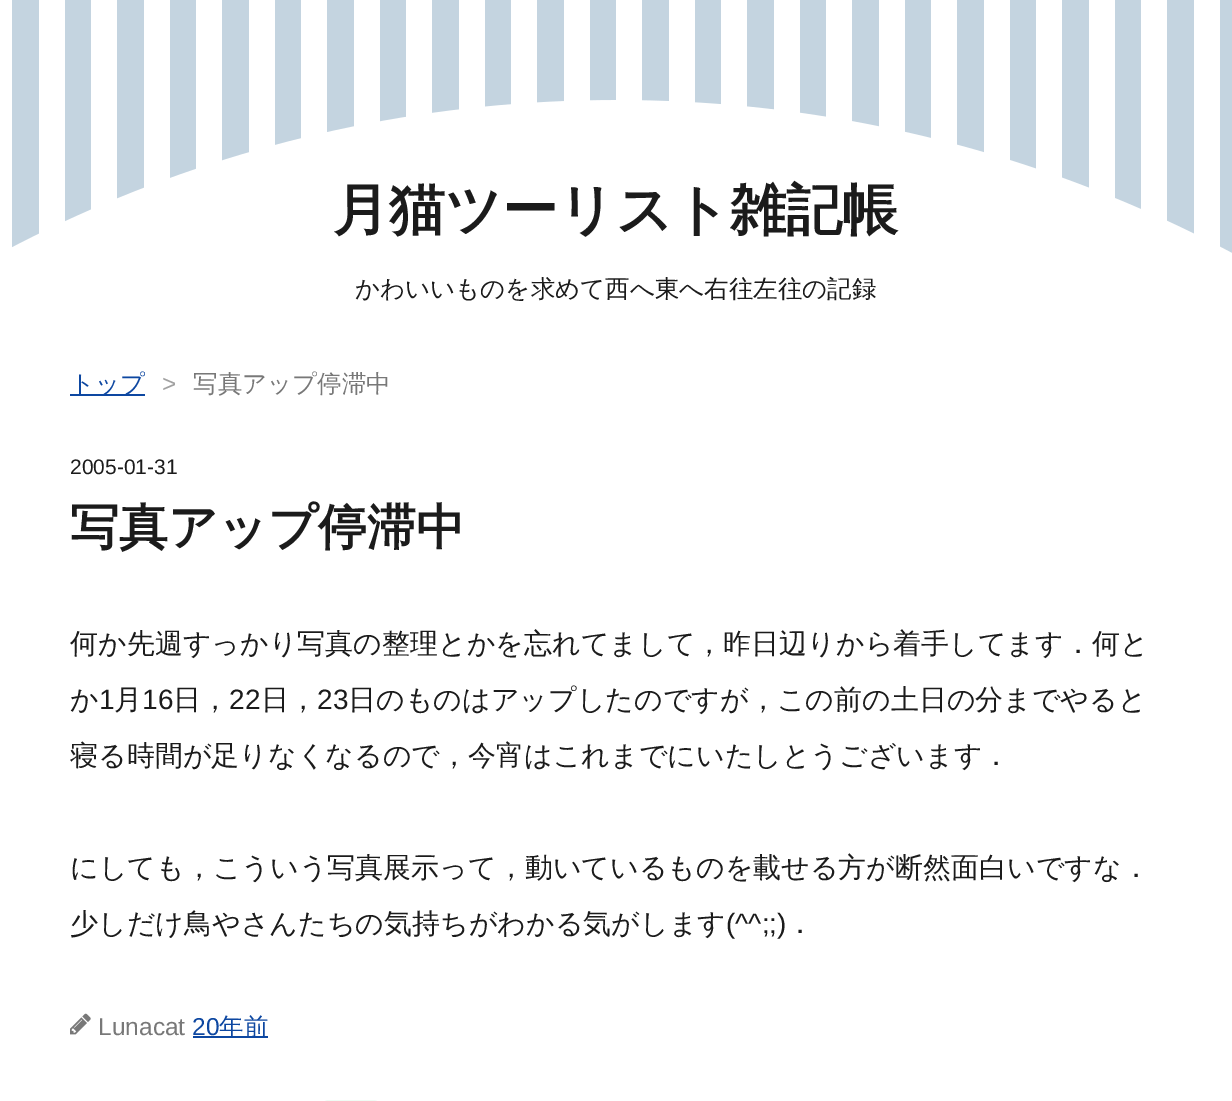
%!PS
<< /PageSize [1232 1101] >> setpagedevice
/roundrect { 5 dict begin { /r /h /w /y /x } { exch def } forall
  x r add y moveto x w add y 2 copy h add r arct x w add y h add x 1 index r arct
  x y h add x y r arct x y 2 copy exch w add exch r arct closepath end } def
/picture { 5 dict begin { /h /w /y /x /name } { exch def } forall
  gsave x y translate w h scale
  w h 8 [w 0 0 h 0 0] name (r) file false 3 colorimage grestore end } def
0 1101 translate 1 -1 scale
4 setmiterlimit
0.769 0.831 0.878 setrgbcolor
0 0 1232 1101 rectfill
1 setgray
-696 100 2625 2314 1312.5 roundrect fill
(img1.rgb) 0 0 1220 254 picture
/WenQuanYiZenHei-Bold [56 0 0 -56 0 0] selectfont
0.106 setgray
333 229 moveto (月猫ツーリスト雑記帳) show
/WenQuanYiZenHei-Medium [24.5 0 0 -24.5 0 0] selectfont
355 297 moveto (かわいいものを求めて西へ東へ右往左往の記録) show
0.051 0.278 0.631 setrgbcolor
70 394 75 2 rectfill
70 392 moveto (トップ) show
/LiberationSans-Regular [24.5 0 0 -24.5 0 0] selectfont
0.631 setgray
162 392 moveto (>) show
/WenQuanYiZenHei-Medium [24.5 0 0 -24.5 0 0] selectfont
0.471 setgray
193 392 moveto (写真アップ停滞中) show
/LiberationSans-Regular [21 0 0 -21 0 0] selectfont
0.106 setgray
70 474 moveto (2005-01-31) show
/WenQuanYiZenHei-Bold [49 0 0 -49 0 0] selectfont
70 544 moveto (写真アップ停滞中) show
/WenQuanYiZenHei-Medium [28 0 0 -28 0 0] selectfont
70 653 moveto (何か先週すっかり写真の整理とかを忘れてまして，昨日辺りから着手してます．何と) show
70 709 moveto (か) show
/LiberationSans-Regular [28 0 0 -28 0 0] selectfont
99 709 moveto (1) show
/WenQuanYiZenHei-Medium [28 0 0 -28 0 0] selectfont
114 709 moveto (月) show
/LiberationSans-Regular [28 0 0 -28 0 0] selectfont
142 709 moveto (16) show
/WenQuanYiZenHei-Medium [28 0 0 -28 0 0] selectfont
173 709 moveto (日，) show
/LiberationSans-Regular [28 0 0 -28 0 0] selectfont
229 709 moveto (22) show
/WenQuanYiZenHei-Medium [28 0 0 -28 0 0] selectfont
261 709 moveto (日，) show
/LiberationSans-Regular [28 0 0 -28 0 0] selectfont
317 709 moveto (23) show
/WenQuanYiZenHei-Medium [28 0 0 -28 0 0] selectfont
348 709 moveto (日のものはアップしたのですが，この前の土日の分までやると) show
70 765 moveto (寝る時間が足りなくなるので，今宵はこれまでにいたしとうございます．) show
70 877 moveto (にしても，こういう写真展示って，動いているものを載せる方が断然面白いですな．) show
70 933 moveto (少しだけ鳥やさんたちの気持ちがわかる気がします) show
/LiberationSans-Regular [28 0 0 -28 0 0] selectfont
726 933 moveto (\(^^;;\)) show
/WenQuanYiZenHei-Medium [28 0 0 -28 0 0] selectfont
786 933 moveto (．) show
(img2.rgb) 70 1013 21 22 picture
/LiberationSans-Regular [24.5 0 0 -24.5 0 0] selectfont
0.471 setgray
98 1035 moveto (Lunacat) show
0.051 0.278 0.631 setrgbcolor
192 1035 moveto (20) show
193 1036 75 2 rectfill
/WenQuanYiZenHei-Medium [24.5 0 0 -24.5 0 0] selectfont
219 1035 moveto (年前) show
(img3.rgb) 325 1100 52 1 picture
showpage
